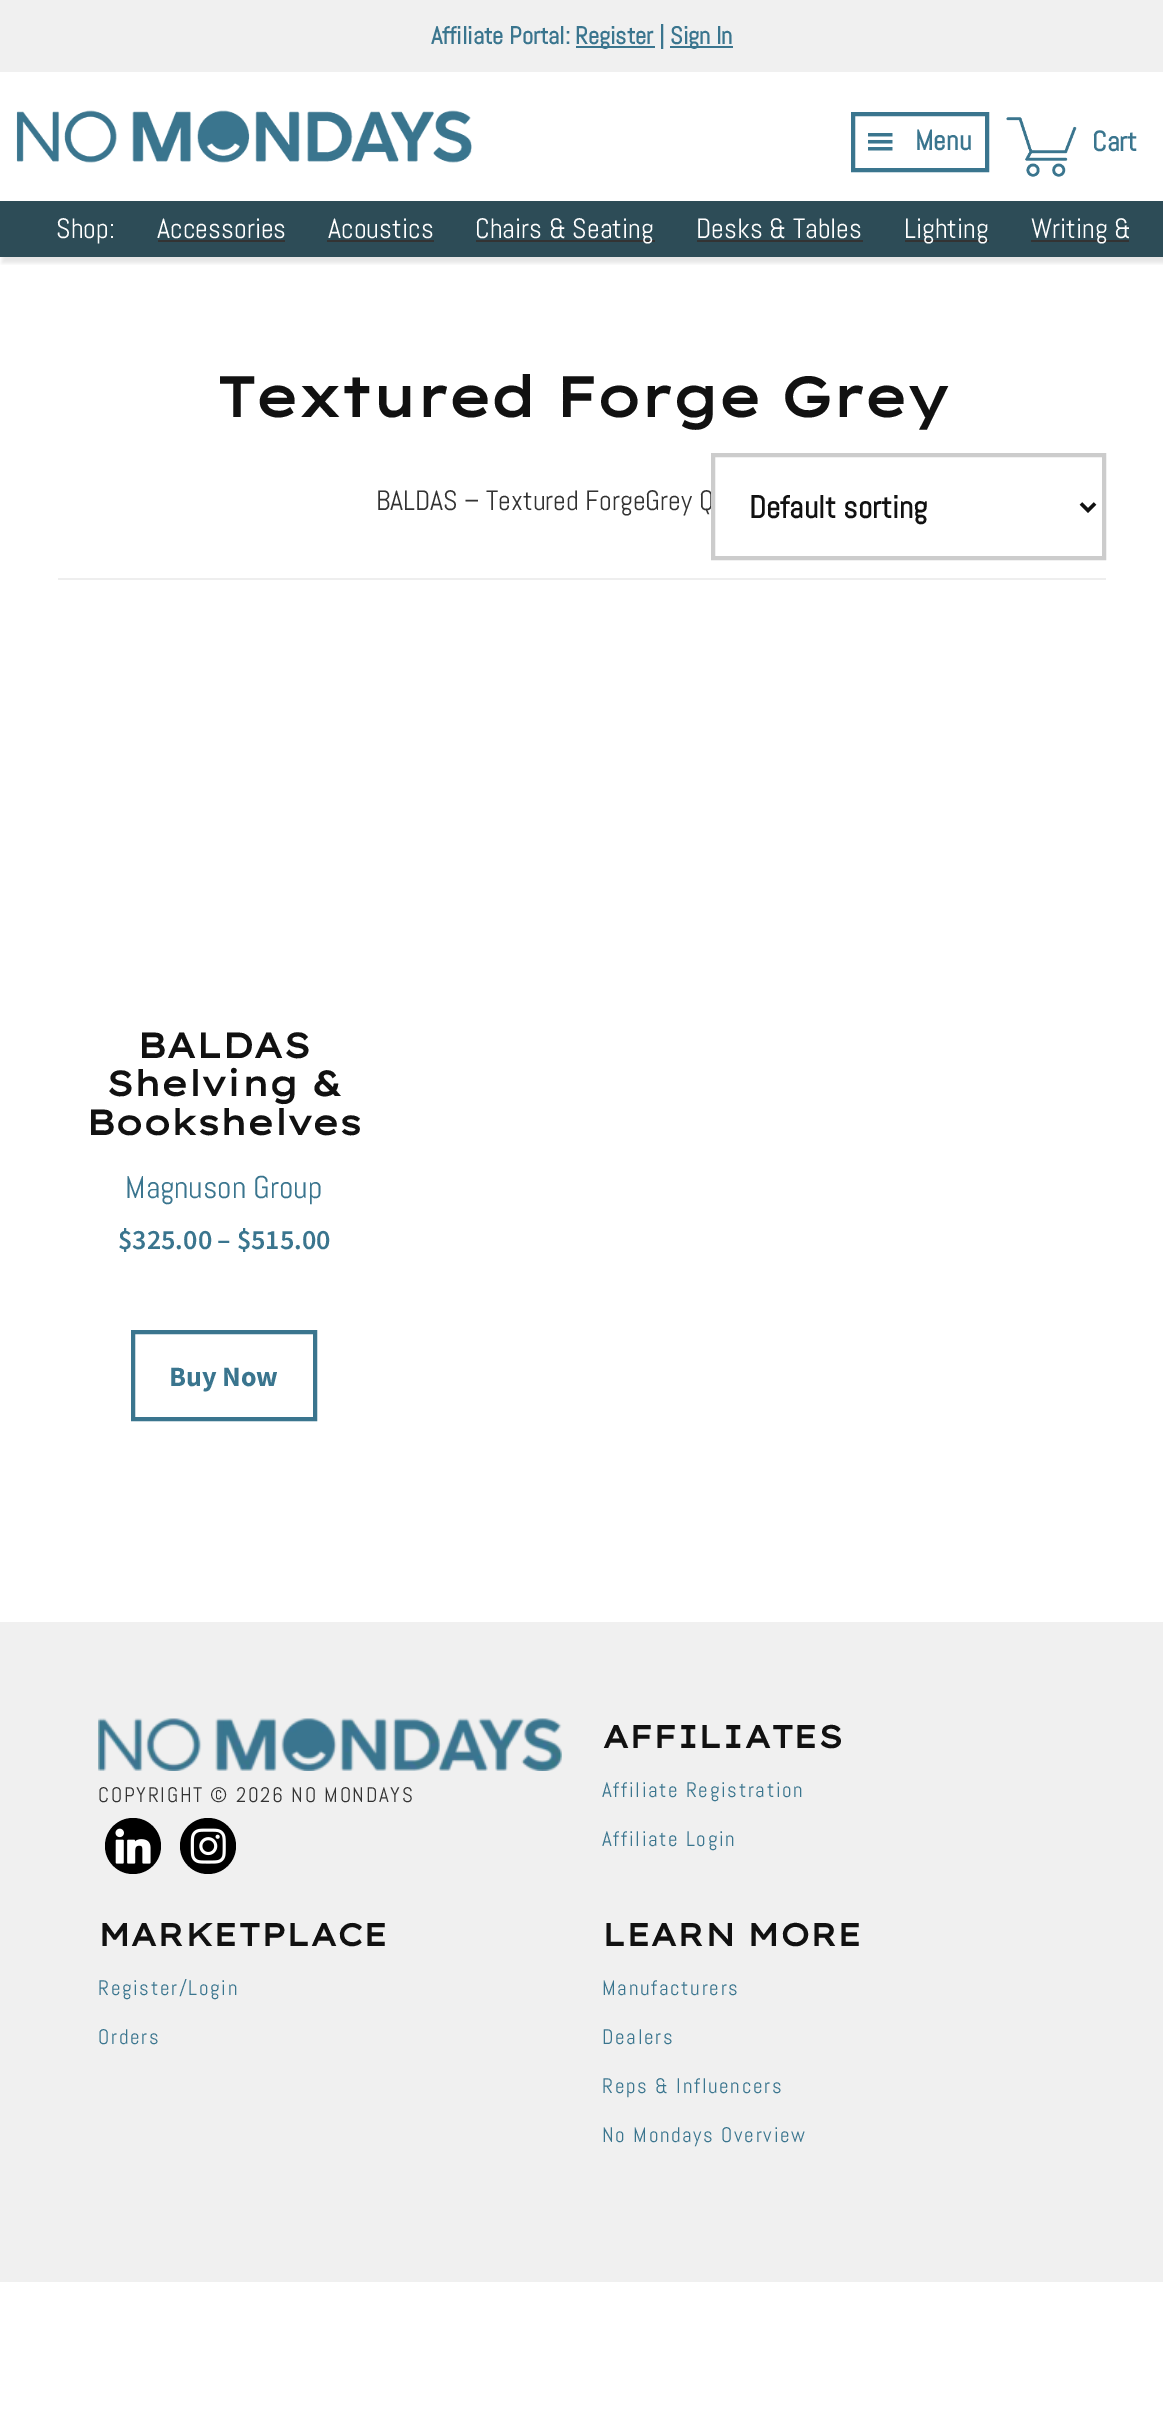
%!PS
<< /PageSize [1163 2419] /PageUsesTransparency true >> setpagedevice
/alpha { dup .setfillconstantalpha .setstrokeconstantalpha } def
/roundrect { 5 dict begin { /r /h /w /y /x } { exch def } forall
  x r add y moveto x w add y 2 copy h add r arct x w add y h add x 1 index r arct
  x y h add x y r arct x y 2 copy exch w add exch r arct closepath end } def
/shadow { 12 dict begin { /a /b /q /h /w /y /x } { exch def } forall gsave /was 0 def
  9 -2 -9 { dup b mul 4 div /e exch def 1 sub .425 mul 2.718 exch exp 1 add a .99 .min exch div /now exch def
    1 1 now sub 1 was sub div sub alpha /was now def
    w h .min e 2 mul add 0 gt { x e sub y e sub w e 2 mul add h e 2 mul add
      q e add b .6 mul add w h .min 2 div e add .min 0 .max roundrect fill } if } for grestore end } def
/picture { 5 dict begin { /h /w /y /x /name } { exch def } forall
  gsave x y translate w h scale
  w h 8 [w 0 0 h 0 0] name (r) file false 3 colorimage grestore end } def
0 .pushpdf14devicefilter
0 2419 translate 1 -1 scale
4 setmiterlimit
1 setgray
0 0 1163 2419 rectfill
0.941 setgray
0 0 1163 72 rectfill
/Abel-Bold [24.5 0 0 -24.5 0 0] selectfont
0.227 0.459 0.557 setrgbcolor
431 44 moveto (Affiliate Portal:) show
576 46 79 2 rectfill
575 44 moveto (Register |) show
670 46 63 2 rectfill
670 44 moveto (Sign In) show
gsave
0 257 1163 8 rectclip
0 setgray
2 74 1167 189 0 2 0.1 shadow
grestore
(img1.rgb) 16 110 456 53 picture
4 setlinewidth
853 114 134 56 rectstroke
(img2.rgb) 868 133 25 18 picture
/Abel-Bold [28 0 0 -28 0 0] selectfont
915 150 moveto (Menu) show
(img3.rgb) 1006 117 71 60 picture
1092 151 moveto (Cart) show
0.176 0.298 0.341 setrgbcolor
0 201 1163 56 rectfill
/Abel-Regular [28 0 0 -28 0 0] selectfont
1 setgray
56 238 moveto (Shop:) show
157 238 moveto (Accessories) show
0.2 setgray
158 240 127 2 rectfill
1 setgray
328 238 moveto (Acoustics) show
0.2 setgray
327 240 107 2 rectfill
476 240 179 2 rectfill
1 setgray
475 238 moveto (Chairs & Seating) show
696 238 moveto (Desks & Tables) show
0.2 setgray
697 240 166 2 rectfill
905 240 84 2 rectfill
1 setgray
904 238 moveto (Lighting) show
0.2 setgray
1031 240 98 2 rectfill
gsave
35 201 1094 56 rectclip
1 setgray
1031 238 moveto (Writing &) show
grestore
0.933 setgray
58 578 1048 2 rectfill
/LexendGiga-Bold [56 0 0 -56 0 0] selectfont
0.067 setgray
216 417 moveto -1.7 0 (Textured Forge Grey) ashow
/Abel-Regular [28 0 0 -28 0 0] selectfont
0.2 setgray
376 510 moveto (BALDAS – Textured ForgeGrey Q) show
0.8 setgray
713 455 391 103 rectstroke
0.067 setgray
3.5 setlinewidth
newpath 1081 503.5 moveto 1088 510.5 lineto 1095 503.5 lineto stroke
/Abel-Bold [31.5 0 0 -31.5 0 0] selectfont
749 518 moveto (Default sorting) show
/LexendGiga-Bold [35 0 0 -35 0 0] selectfont
137 1058 moveto -0.75 0 (BALDAS) ashow
106 1096 moveto -0.75 0 (Shelving &) ashow
86 1135 moveto -0.75 0 (Bookshelves) ashow
/Abel-Regular [31.5 0 0 -31.5 0 0] selectfont
0.227 0.459 0.557 setrgbcolor
125 1198 moveto (Magnuson Group) show
/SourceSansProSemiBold-SemiBold [28 0 0 -28 0 0] selectfont
118 1249 moveto ($325.00 – $515.00) show
4 setlinewidth
133 1332 182 87 rectstroke
/SourceSansPro-Bold [28 0 0 -28 0 0] selectfont
169 1386 moveto (Buy Now) show
0.941 setgray
0 1622 1163 660 rectfill
(img4.rgb) 98 1718 464 53 picture
/Abel-Regular [21 0 0 -21 0 0] selectfont
0.2 setgray
98 1802 moveto 1.7 0 (COPYRIGHT © 2026 NO MONDAYS) ashow
0 setgray
newpath 133 1846 28 0 360 arc closepath fill
(img5.rgb) 115 1828 36 36 picture
newpath 208 1846 28 0 360 arc closepath fill
(img6.rgb) 190 1828 36 36 picture
/LexendGiga-Bold [31.5 0 0 -31.5 0 0] selectfont
0.067 setgray
602 1748 moveto -0.25 0 (AFFILIATES) ashow
/Abel-Regular [21 0 0 -21 0 0] selectfont
0.227 0.459 0.557 setrgbcolor
602 1797 moveto 1.7 0 (Affiliate Registration) ashow
602 1846 moveto 1.7 0 (Affiliate Login) ashow
/LexendGiga-Bold [31.5 0 0 -31.5 0 0] selectfont
0.067 setgray
98 1946 moveto -0.25 0 (MARKETPLACE) ashow
/Abel-Regular [21 0 0 -21 0 0] selectfont
0.227 0.459 0.557 setrgbcolor
98 1995 moveto 1.7 0 (Register/Login) ashow
98 2044 moveto 1.7 0 (Orders) ashow
/LexendGiga-Bold [31.5 0 0 -31.5 0 0] selectfont
0.067 setgray
602 1946 moveto -0.25 0 (LEARN MORE) ashow
/Abel-Regular [21 0 0 -21 0 0] selectfont
0.227 0.459 0.557 setrgbcolor
602 1995 moveto 1.7 0 (Manufacturers) ashow
602 2044 moveto 1.7 0 (Dealers) ashow
602 2093 moveto 1.7 0 (Reps & Influencers) ashow
602 2142 moveto 1.7 0 (No Mondays Overview) ashow
.poppdf14devicefilter showpage
